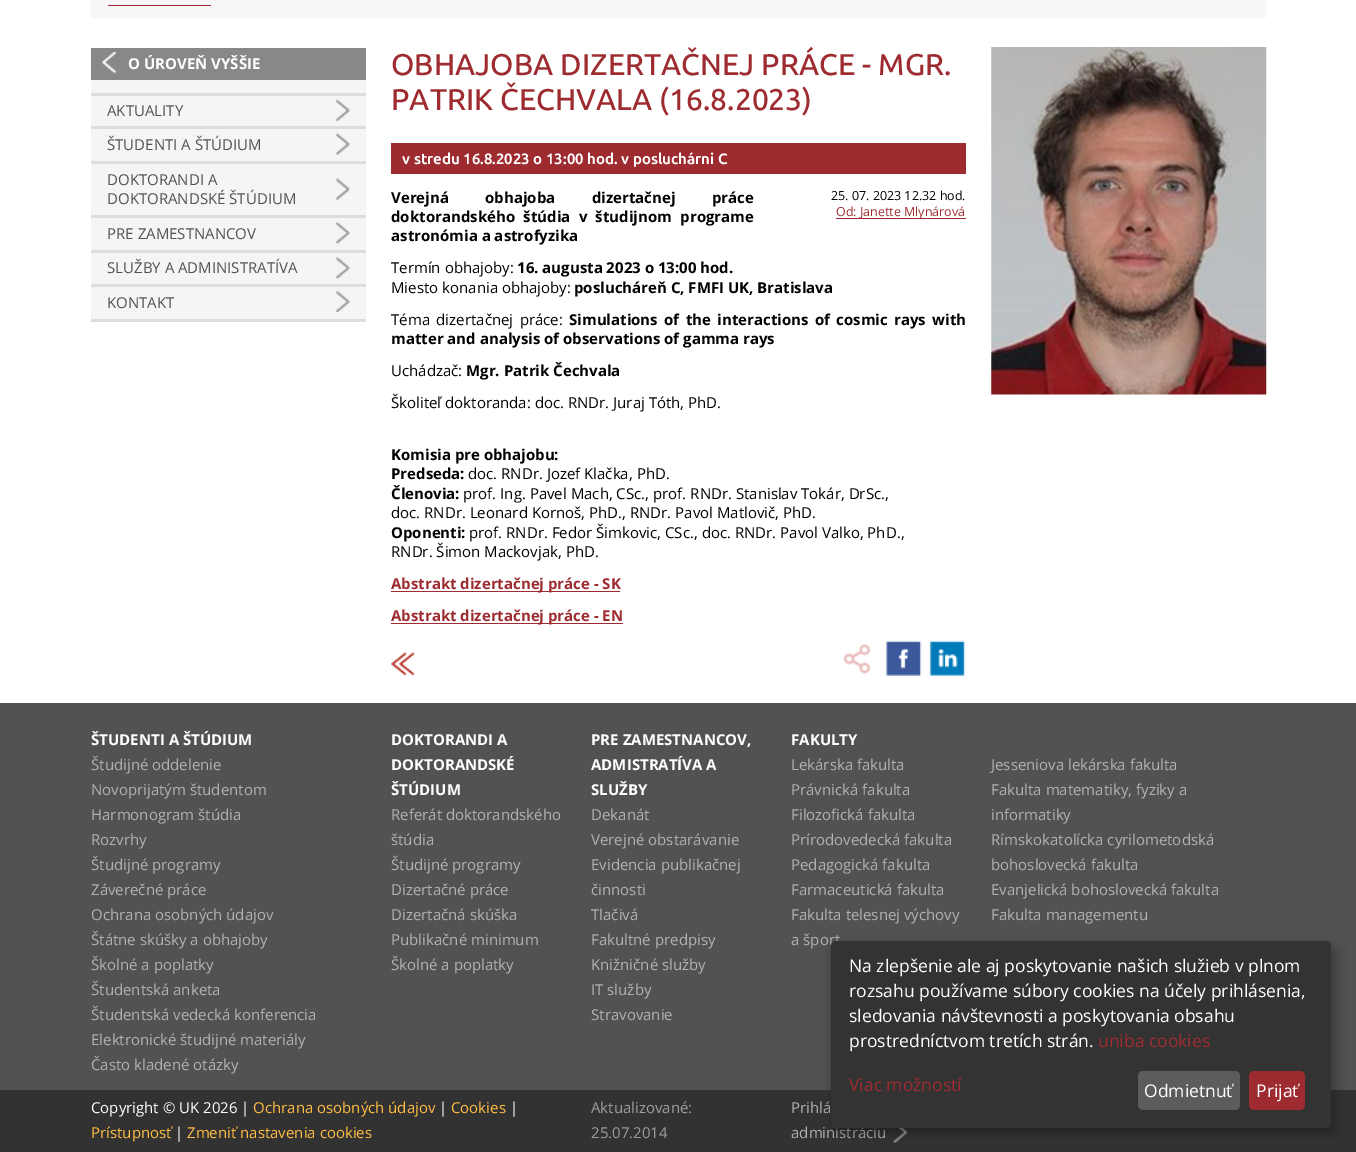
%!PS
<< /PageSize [1356 1152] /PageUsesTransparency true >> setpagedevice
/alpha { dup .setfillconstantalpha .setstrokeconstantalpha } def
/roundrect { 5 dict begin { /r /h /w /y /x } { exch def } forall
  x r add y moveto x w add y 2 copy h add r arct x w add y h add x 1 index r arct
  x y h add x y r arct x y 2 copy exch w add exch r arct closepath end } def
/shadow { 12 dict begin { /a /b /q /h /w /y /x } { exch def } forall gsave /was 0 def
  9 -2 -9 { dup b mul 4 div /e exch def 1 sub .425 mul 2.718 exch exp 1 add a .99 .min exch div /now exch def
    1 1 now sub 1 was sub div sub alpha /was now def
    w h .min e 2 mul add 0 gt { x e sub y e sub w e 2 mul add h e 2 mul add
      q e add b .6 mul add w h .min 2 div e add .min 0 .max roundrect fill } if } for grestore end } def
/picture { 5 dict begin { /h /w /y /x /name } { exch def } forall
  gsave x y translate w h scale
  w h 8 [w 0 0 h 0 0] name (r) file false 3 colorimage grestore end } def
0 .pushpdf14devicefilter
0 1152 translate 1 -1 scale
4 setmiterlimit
1 setgray
0 0 1356 1152 rectfill
0.969 setgray
91 0 1175 18 rectfill
0.62 0.169 0.184 setrgbcolor
108 5 103 1 rectfill
0.961 setgray
91 80 275 239 rectfill
0.533 setgray
91 48 275 32 rectfill
(img1.rgb) 102 52 15 22 picture
/OpenSans-Bold [15 0 0 -15 0 0] selectfont
1 setgray
128 69 moveto (O ÚROVEŇ VYŠŠIE) show
0.867 setgray
91 93 275 3 rectfill
91 126 275 3 rectfill
(img2.rgb) 336 99 15 22 picture
/OpenSans-Regular [15 0 0 -15 0 0] selectfont
0.325 0.322 0.314 setrgbcolor
107 116 moveto (AKTUALITY) show
0.867 setgray
91 161 275 3 rectfill
(img3.rgb) 336 133 14 22 picture
0.325 0.322 0.314 setrgbcolor
107 150 moveto (ŠTUDENTI A ŠTÚDIUM) show
0.867 setgray
91 215 275 3 rectfill
(img3.rgb) 336 178 14 22 picture
0.325 0.322 0.314 setrgbcolor
107 185 moveto (DOKTORANDI A) show
107 204 moveto (DOKTORANDSKÉ ŠTÚDIUM) show
0.867 setgray
91 250 275 3 rectfill
(img4.rgb) 336 222 15 22 picture
0.325 0.322 0.314 setrgbcolor
107 239 moveto (PRE ZAMESTNANCOV) show
0.867 setgray
91 284 275 3 rectfill
(img4.rgb) 336 257 15 22 picture
0.325 0.322 0.314 setrgbcolor
107 273 moveto (SLUŽBY A ADMINISTRATÍVA) show
0.867 setgray
91 319 275 3 rectfill
(img5.rgb) 336 290 15 22 picture
0.325 0.322 0.314 setrgbcolor
107 308 moveto (KONTAKT) show
/Ubuntu-Medium [30 0 0 -30 0 0] selectfont
0.62 0.169 0.184 setrgbcolor
391 75 moveto (OBHAJOBA DIZERTAČNEJ PRÁCE - MGR.) show
391 110 moveto (PATRIK ČECHVALA \(16.8.2023\)) show
391 143 575 31 rectfill
/Ubuntu-Bold [15 0 0 -15 0 0] selectfont
1 setgray
402 164 moveto (v stredu 16.8.2023 o 13:00 hod. v posluchárni C) show
/OpenSans-Bold [15 0 0 -15 0 0] selectfont
0 setgray
391 203 moveto 32.5 0 32 (Verejná obhajoba dizertačnej práce) widthshow
391 222 moveto 4.5 0 32 (doktorandského štúdia v študijnom programe) widthshow
391 241 moveto (astronómia a astrofyzika) show
/OpenSans-Regular [12.5 0 0 -12.5 0 0] selectfont
831 200 moveto (25. 07. 2023 12.32 hod.) show
0.62 0.169 0.184 setrgbcolor
836 218 130 1 rectfill
836 216 moveto (Od: Janette Mlynárová) show
/OpenSans-Regular [15 0 0 -15 0 0] selectfont
0 setgray
391 273 moveto (Termín obhajoby:) show
/OpenSans-Bold [15 0 0 -15 0 0] selectfont
517 273 moveto (16. augusta 2023 o 13:00 hod.) show
/OpenSans-Regular [15 0 0 -15 0 0] selectfont
391 293 moveto (Miesto konania obhajoby:) show
/OpenSans-Bold [15 0 0 -15 0 0] selectfont
574 293 moveto (poslucháreň C, FMFI UK, Bratislava) show
/OpenSans-Regular [15 0 0 -15 0 0] selectfont
391 325 moveto 2.5 0 32 (Téma dizertačnej práce:) widthshow
/OpenSans-Bold [15 0 0 -15 0 0] selectfont
569 325 moveto 2.5 0 32 (Simulations of the interactions of cosmic rays with) widthshow
391 344 moveto (matter and analysis of observations of gamma rays) show
/OpenSans-Regular [15 0 0 -15 0 0] selectfont
391 376 moveto (Uchádzač:) show
/OpenSans-Bold [15 0 0 -15 0 0] selectfont
466 376 moveto (Mgr. Patrik Čechvala) show
/OpenSans-Regular [15 0 0 -15 0 0] selectfont
391 408 moveto (Školiteľ doktoranda: doc. RNDr. Juraj Tóth, PhD.) show
/OpenSans-Bold [15 0 0 -15 0 0] selectfont
391 460 moveto (Komisia pre obhajobu:) show
391 479 moveto (Predseda:) show
/OpenSans-Regular [15 0 0 -15 0 0] selectfont
468 479 moveto (doc. RNDr. Jozef Klačka, PhD.) show
/OpenSans-Bold [15 0 0 -15 0 0] selectfont
391 499 moveto (Členovia:) show
/OpenSans-Regular [15 0 0 -15 0 0] selectfont
463 499 moveto (prof. Ing. Pavel Mach, CSc., prof. RNDr. Stanislav Tokár, DrSc.,) show
391 518 moveto (doc. RNDr. Leonard Kornoš, PhD., RNDr. Pavol Matlovič, PhD.) show
/OpenSans-Bold [15 0 0 -15 0 0] selectfont
391 538 moveto (Oponenti:) show
/OpenSans-Regular [15 0 0 -15 0 0] selectfont
469 538 moveto (prof. RNDr. Fedor Šimkovic, CSc., doc. RNDr. Pavol Valko, PhD.,) show
391 557 moveto (RNDr. Šimon Mackovjak, PhD.) show
0.62 0.169 0.184 setrgbcolor
391 591 229 1 rectfill
/OpenSans-Bold [15 0 0 -15 0 0] selectfont
391 589 moveto (Abstrakt dizertačnej práce - SK) show
391 623 232 1 rectfill
391 621 moveto (Abstrakt dizertačnej práce - EN) show
(img6.rgb) 391 652 24 24 picture
(img7.rgb) 843 644 28 30 picture
(img8.rgb) 886 640 36 36 picture
(img9.rgb) 929 640 37 36 picture
(img10.rgb) 991 47 276 348 picture
0.325 0.322 0.314 setrgbcolor
0 703 1356 387 rectfill
1 setgray
91 745 moveto (ŠTUDENTI A ŠTÚDIUM) show
/OpenSans-Regular [15 0 0 -15 0 0] selectfont
0.694 setgray
91 770 moveto (Študijné oddelenie) show
91 795 moveto (Novoprijatým študentom) show
91 820 moveto (Harmonogram štúdia) show
91 845 moveto (Rozvrhy) show
91 870 moveto (Študijné programy) show
91 895 moveto (Záverečné práce) show
91 920 moveto (Ochrana osobných údajov) show
91 945 moveto (Štátne skúšky a obhajoby) show
91 970 moveto (Školné a poplatky) show
91 995 moveto (Študentská anketa) show
91 1020 moveto (Študentská vedecká konferencia) show
91 1045 moveto (Elektronické študijné materiály) show
91 1070 moveto (Často kladené otázky) show
/OpenSans-Bold [15 0 0 -15 0 0] selectfont
1 setgray
391 745 moveto (DOKTORANDI A) show
391 770 moveto (DOKTORANDSKÉ) show
391 795 moveto (ŠTÚDIUM) show
/OpenSans-Regular [15 0 0 -15 0 0] selectfont
0.694 setgray
391 820 moveto (Referát doktorandského) show
391 845 moveto (štúdia) show
391 870 moveto (Študijné programy) show
391 895 moveto (Dizertačné práce) show
391 920 moveto (Dizertačná skúška) show
391 945 moveto (Publikačné minimum) show
391 970 moveto (Školné a poplatky) show
/OpenSans-Bold [15 0 0 -15 0 0] selectfont
1 setgray
591 745 moveto (PRE ZAMESTNANCOV,) show
591 770 moveto (ADMISTRATÍVA A) show
591 795 moveto (SLUŽBY) show
/OpenSans-Regular [15 0 0 -15 0 0] selectfont
0.694 setgray
591 820 moveto (Dekanát) show
591 845 moveto (Verejné obstarávanie) show
591 870 moveto (Evidencia publikačnej) show
591 895 moveto (činnosti) show
591 920 moveto (Tlačivá) show
591 945 moveto (Fakultné predpisy) show
591 970 moveto (Knižničné služby) show
591 995 moveto (IT služby) show
591 1020 moveto (Stravovanie) show
/OpenSans-Bold [15 0 0 -15 0 0] selectfont
1 setgray
791 745 moveto (FAKULTY) show
/OpenSans-Regular [15 0 0 -15 0 0] selectfont
0.694 setgray
791 770 moveto (Lekárska fakulta) show
791 795 moveto (Právnická fakulta) show
791 820 moveto (Filozofická fakulta) show
791 845 moveto (Prírodovedecká fakulta) show
791 870 moveto (Pedagogická fakulta) show
791 895 moveto (Farmaceutická fakulta) show
791 920 moveto (Fakulta telesnej výchovy) show
791 945 moveto (a šport) show
991 770 moveto (Jesseniova lekárska fakulta) show
991 795 moveto (Fakulta matematiky, fyziky a) show
991 820 moveto (informatiky) show
991 845 moveto (Rímskokatolícka cyrilometodská) show
991 870 moveto (bohoslovecká fakulta) show
991 895 moveto (Evanjelická bohoslovecká fakulta) show
991 920 moveto (Fakulta managementu) show
0.196 setgray
0 1090 1356 62 rectfill
1 setgray
91 1113 moveto (Copyright © UK 2026 |) show
1 0.741 0.263 setrgbcolor
253 1113 moveto (Ochrana osobných údajov) show
1 setgray
439 1113 moveto (|) show
1 0.741 0.263 setrgbcolor
451 1113 moveto (Cookies) show
1 setgray
510 1113 moveto (|) show
1 0.741 0.263 setrgbcolor
91 1138 moveto (Prístupnosť) show
1 setgray
175 1138 moveto (|) show
1 0.741 0.263 setrgbcolor
187 1138 moveto (Zmeniť nastavenia cookies) show
0.616 setgray
591 1113 moveto (Aktualizované:) show
591 1138 moveto (25.07.2014) show
0.694 setgray
791 1113 moveto (Prihlá) show
791 1138 moveto (administráciu) show
(img11.rgb) 893 1128 15 15 picture
0 setgray
838 948 500 186 5 6 0.19 shadow
831 946 500 187 5 4 0.2 shadow
0.2 setgray
831 941 500 187 5 roundrect fill
/OpenSans-Regular [17.5 0 0 -17.5 0 0] selectfont
1 setgray
849 972 moveto (Na zlepšenie ale aj poskytovanie našich služieb v plnom) show
849 997 moveto (rozsahu používame súbory cookies na účely prihlásenia,) show
849 1022 moveto (sledovania návštevnosti a poskytovania obsahu) show
849 1047 moveto (prostredníctvom tretích strán.) show
0.62 0.169 0.184 setrgbcolor
1098 1047 moveto (uniba cookies) show
849 1091 moveto (Viac možností) show
0.361 setgray
1138 1071 102 39 5 roundrect fill
1 setgray
1144 1097 moveto (Odmietnuť) show
0.62 0.169 0.184 setrgbcolor
1249 1071 56 39 5 roundrect fill
1 setgray
1256 1097 moveto (Prijať) show
.poppdf14devicefilter showpage
